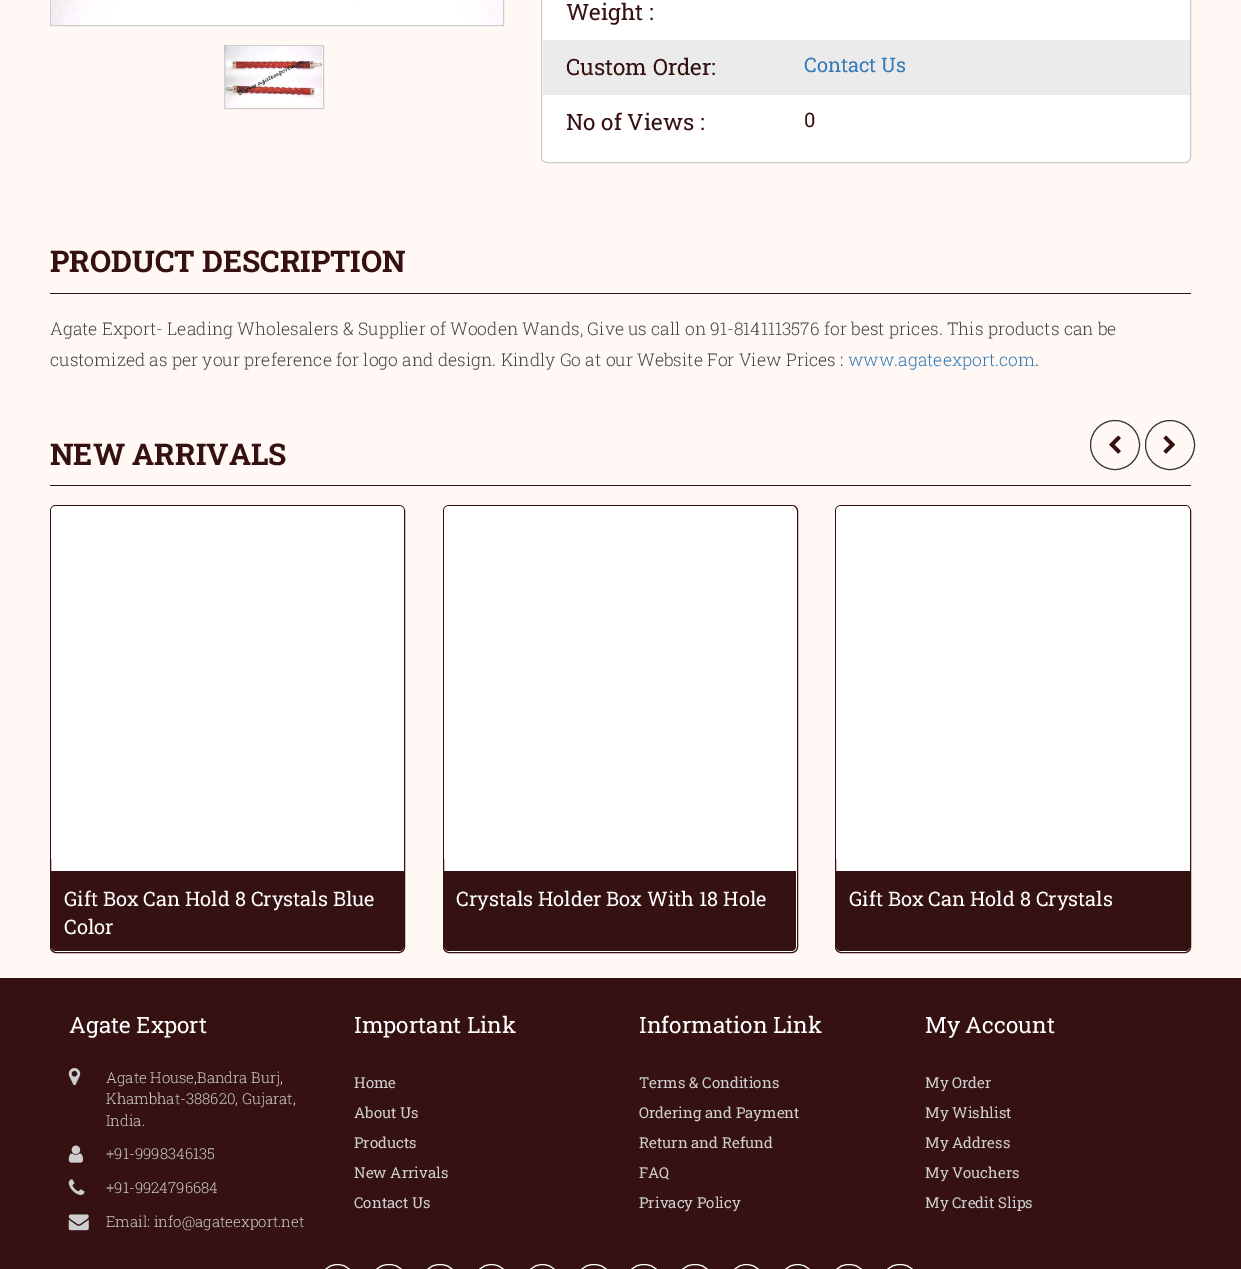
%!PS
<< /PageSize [1241 1269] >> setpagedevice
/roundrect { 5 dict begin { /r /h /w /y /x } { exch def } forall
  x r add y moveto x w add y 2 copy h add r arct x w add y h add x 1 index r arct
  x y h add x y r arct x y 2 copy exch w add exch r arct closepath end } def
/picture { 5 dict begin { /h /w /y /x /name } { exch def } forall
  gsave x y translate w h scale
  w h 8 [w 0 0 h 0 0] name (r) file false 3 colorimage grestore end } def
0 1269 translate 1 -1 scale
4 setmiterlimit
1 0.973 0.957 setrgbcolor
0 0 1241 1269 rectfill
0.808 setgray
50.5 -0.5 453 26 rectstroke
(img1.rgb) 51 0 452 25 picture
224.5 45.5 99 63 rectstroke
(img2.rgb) 225 46 98 62 picture
1 setgray
541.5 -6.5 649 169 5.5 roundrect gsave fill grestore
0.8 setgray
stroke
/RobotoSlab-Regular [22.5 0 0 -22.5 0 0] selectfont
0.208 0.067 0.067 setrgbcolor
566 20 moveto (Weight :) show
0.922 setgray
543 40 647 55 rectfill
0.208 0.067 0.067 setrgbcolor
566 75 moveto (Custom Order:) show
/RobotoSlab-Regular [20 0 0 -20 0 0] selectfont
0.2 0.478 0.718 setrgbcolor
804 72 moveto (Contact Us) show
/RobotoSlab-Regular [22.5 0 0 -22.5 0 0] selectfont
0.208 0.067 0.067 setrgbcolor
566 130 moveto (No of Views :) show
/RobotoSlab-Regular [20 0 0 -20 0 0] selectfont
804 127 moveto (0) show
50 293 1141 1 rectfill
/RobotoSlab-Bold [30 0 0 -30 0 0] selectfont
50 272 moveto (PRODUCT DESCRIPTION) show
/RobotoSlab-Light [17.5 0 0 -17.5 0 0] selectfont
0.267 setgray
50 335 moveto (Agate Export- Leading Wholesalers & Supplier of Wooden Wands, Give us call on 91-8141113576 for best prices. This products can be) show
50 366 moveto (customized as per your preference for logo and design. Kindly Go at our Website For View Prices :) show
0.2 0.478 0.718 setrgbcolor
848 366 moveto (www.agateexport.com) show
0.267 setgray
1035 366 moveto (.) show
0.208 0.067 0.067 setrgbcolor
50 485 1141 1 rectfill
/RobotoSlab-Bold [30 0 0 -30 0 0] selectfont
50 465 moveto (NEW ARRIVALS) show
0.2 setgray
newpath 1115 445 24.5 0 360 arc closepath stroke
(img3.rgb) 1109 435 12 19 picture
newpath 1170 445 24.5 0 360 arc closepath stroke
(img4.rgb) 1163 435 12 19 picture
1 setgray
50.5 505.5 354 447 5.5 roundrect gsave fill grestore
0.208 0.067 0.067 setrgbcolor
stroke
1 setgray
newpath 56 506 moveto 399 506 lineto 402 506 404 508 404 511 curveto 404 859 lineto 51 859 lineto 51 511 lineto 51 508 53 506 56 506 curveto closepath fill
0.208 0.067 0.067 setrgbcolor
newpath 51 871 moveto 404 871 lineto 404 946 lineto 404 949 402 951 399 951 curveto 56 951 lineto 53 951 51 949 51 946 curveto closepath fill
/RobotoSlab-Regular [20 0 0 -20 0 0] selectfont
1 setgray
64 906 moveto (Gift Box Can Hold 8 Crystals Blue) show
64 934 moveto (Color) show
443.5 505.5 354 447 5.5 roundrect gsave fill grestore
0.208 0.067 0.067 setrgbcolor
stroke
1 setgray
newpath 449 506 moveto 791 506 lineto 794 506 796 508 796 511 curveto 796 859 lineto 444 859 lineto 444 511 lineto 444 508 446 506 449 506 curveto closepath fill
0.208 0.067 0.067 setrgbcolor
newpath 444 871 moveto 796 871 lineto 796 946 lineto 796 949 794 951 791 951 curveto 449 951 lineto 446 951 444 949 444 946 curveto closepath fill
1 setgray
456 906 moveto (Crystals Holder Box With 18 Hole) show
835.5 505.5 355 447 5.5 roundrect gsave fill grestore
0.208 0.067 0.067 setrgbcolor
stroke
1 setgray
newpath 841 506 moveto 1185 506 lineto 1188 506 1190 508 1190 511 curveto 1190 859 lineto 836 859 lineto 836 511 lineto 836 508 838 506 841 506 curveto closepath fill
0.208 0.067 0.067 setrgbcolor
newpath 836 871 moveto 1190 871 lineto 1190 946 lineto 1190 949 1188 951 1185 951 curveto 841 951 lineto 838 951 836 949 836 946 curveto closepath fill
1 setgray
849 906 moveto (Gift Box Can Hold 8 Crystals) show
0.208 0.067 0.067 setrgbcolor
0 978 1241 291 rectfill
/RobotoSlab-Regular [22.5 0 0 -22.5 0 0] selectfont
1 setgray
69 1033 moveto (Agate Export) show
(img5.rgb) 68 1068 13 18 picture
/RobotoSlab-Light [15 0 0 -15 0 0] selectfont
0.808 setgray
106 1083 moveto (Agate House,Bandra Burj,) show
106 1104 moveto (Khambhat-388620, Gujarat,) show
106 1126 moveto (India.) show
(img6.rgb) 68 1145 15 18 picture
106 1159 moveto (+91-9998346135) show
(img7.rgb) 68 1179 17 16 picture
106 1193 moveto (+91-9924796684) show
(img8.rgb) 68 1214 21 17 picture
106 1227 moveto (Email: info@agateexport.net) show
/RobotoSlab-Regular [22.5 0 0 -22.5 0 0] selectfont
1 setgray
354 1033 moveto (Important Link) show
/RobotoSlab-Regular [15 0 0 -15 0 0] selectfont
0.808 setgray
354 1088 moveto (Home) show
354 1118 moveto (About Us) show
354 1148 moveto (Products) show
354 1178 moveto (New Arrivals) show
354 1208 moveto (Contact Us) show
/RobotoSlab-Regular [22.5 0 0 -22.5 0 0] selectfont
1 setgray
639 1033 moveto (Information Link) show
/RobotoSlab-Regular [15 0 0 -15 0 0] selectfont
0.808 setgray
639 1088 moveto (Terms & Conditions) show
639 1118 moveto (Ordering and Payment) show
639 1148 moveto (Return and Refund) show
639 1178 moveto (FAQ) show
639 1208 moveto (Privacy Policy) show
/RobotoSlab-Regular [22.5 0 0 -22.5 0 0] selectfont
1 setgray
925 1033 moveto (My Account) show
/RobotoSlab-Regular [15 0 0 -15 0 0] selectfont
0.808 setgray
925 1088 moveto (My Order) show
925 1118 moveto (My Wishlist) show
925 1148 moveto (My Address) show
925 1178 moveto (My Vouchers) show
925 1208 moveto (My Credit Slips) show
1 setgray
319.5 1264.5 36 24 18 roundrect stroke
370.5 1264.5 37 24 18 roundrect stroke
421.5 1264.5 37 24 18 roundrect stroke
473.5 1264.5 36 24 18 roundrect stroke
524.5 1264.5 36 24 18 roundrect stroke
575.5 1264.5 37 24 18 roundrect stroke
625.5 1264.5 37 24 18 roundrect stroke
676.5 1264.5 37 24 18 roundrect stroke
728.5 1264.5 36 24 18 roundrect stroke
779.5 1264.5 36 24 18 roundrect stroke
830.5 1264.5 37 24 18 roundrect stroke
881.5 1264.5 37 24 18 roundrect stroke
showpage
